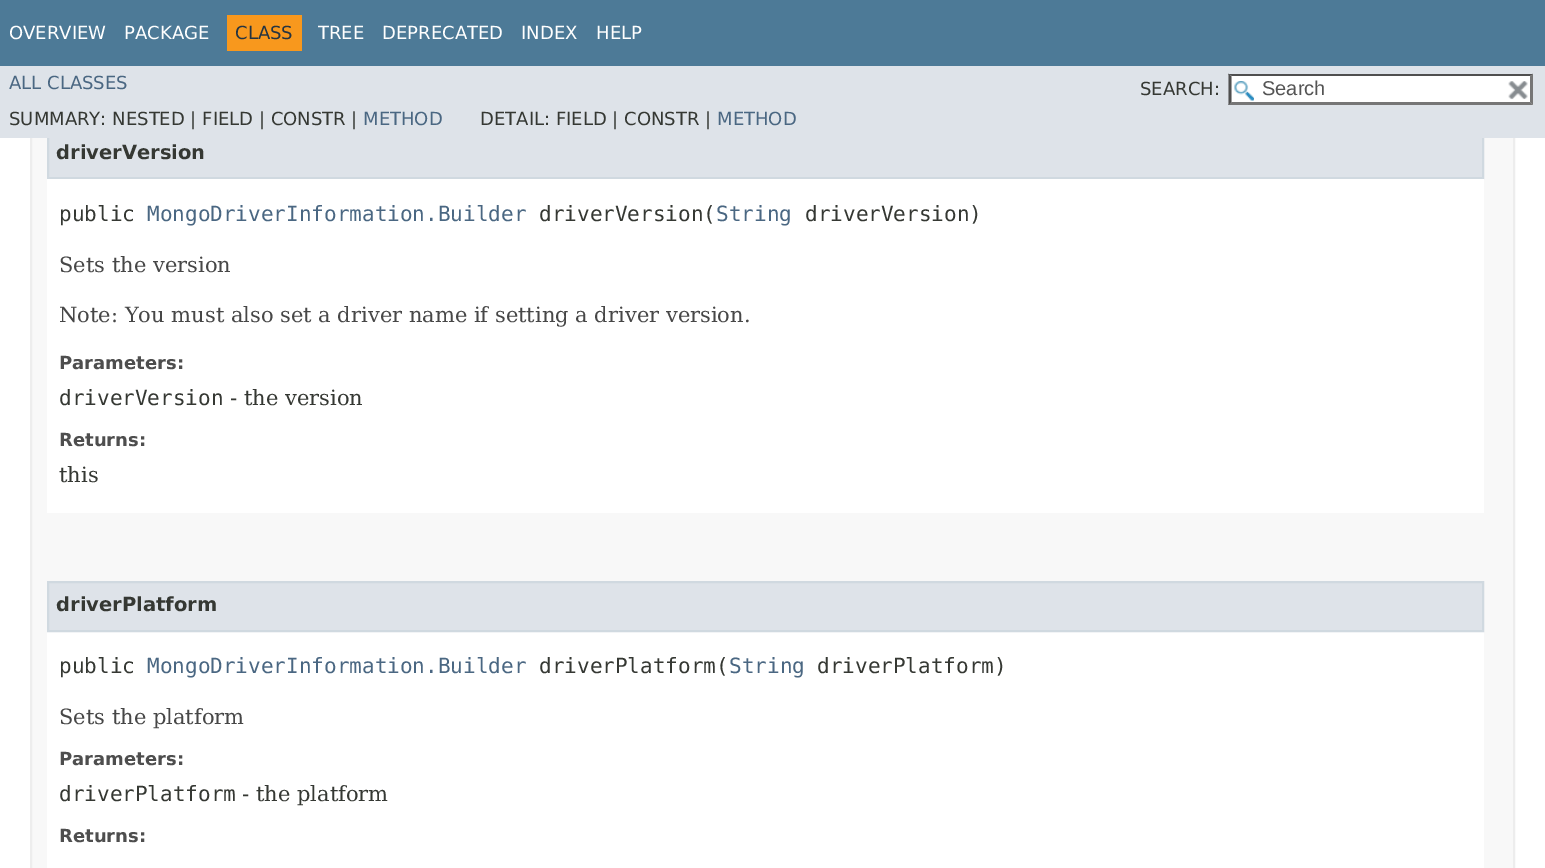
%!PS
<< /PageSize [1545 868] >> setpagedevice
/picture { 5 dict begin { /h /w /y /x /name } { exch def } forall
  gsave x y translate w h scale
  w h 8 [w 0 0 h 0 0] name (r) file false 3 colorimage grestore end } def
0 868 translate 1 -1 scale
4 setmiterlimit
1 setgray
0 0 1545 868 rectfill
0.973 setgray
32 138 1481 730 rectfill
0.929 setgray
2 setlinewidth
31 -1 1483 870 rectstroke
0.302 0.478 0.592 setrgbcolor
0 0 1545 66 rectfill
/DejaVuSans-Regular [18 0 0 -18 0 0] selectfont
1 setgray
9 39 moveto (OVERVIEW) show
124 39 moveto (PACKAGE) show
0.973 0.596 0.114 setrgbcolor
227 15 75 36 rectfill
0.145 0.204 0.255 setrgbcolor
235 39 moveto (CLASS) show
1 setgray
318 39 moveto (TREE) show
382 39 moveto (DEPRECATED) show
521 39 moveto (INDEX) show
596 39 moveto (HELP) show
0.871 0.89 0.914 setrgbcolor
49 138 1433 39 rectfill
0.816 0.851 0.878 setrgbcolor
48 129 1435 49 rectstroke
0.871 0.89 0.914 setrgbcolor
0 66 1545 72 rectfill
0.29 0.404 0.51 setrgbcolor
9 89 moveto (ALL CLASSES) show
0.208 0.22 0.2 setrgbcolor
1140 95 moveto (SEARCH:) show
1 setgray
1229 74 304 31 rectfill
(img1.rgb) 1234 81 20 20 picture
0.31 setgray
newpath 1228 74 moveto 1533 74 lineto 1530 76 lineto 1232 76 lineto closepath fill
0.463 setgray
newpath 1533 73.5 moveto 1533 105 lineto 1530 102 lineto 1530 76.5 lineto closepath fill
newpath 1533 105 moveto 1228 105 lineto 1232 102 lineto 1530 102 lineto closepath fill
0.31 setgray
newpath 1228.5 105 moveto 1228.5 73.5 lineto 1231.5 76.5 lineto 1231.5 102 lineto closepath fill
/LiberationSans-Regular [20 0 0 -20 0 0] selectfont
0.329 setgray
1262 95 moveto (Search) show
(img2.rgb) 1508 81 20 19 picture
/DejaVuSans-Regular [18 0 0 -18 0 0] selectfont
0.208 0.22 0.2 setrgbcolor
9 125 moveto (SUMMARY: NESTED | FIELD | CONSTR |) show
0.29 0.404 0.51 setrgbcolor
363 125 moveto (METHOD) show
0.208 0.22 0.2 setrgbcolor
480 125 moveto (DETAIL: FIELD | CONSTR |) show
0.29 0.404 0.51 setrgbcolor
717 125 moveto (METHOD) show
1 setgray
47 179 1437 334 rectfill
/DejaVuSans-Bold [19.5 0 0 -19.5 0 0] selectfont
0.208 0.22 0.2 setrgbcolor
56 159 moveto (driverVersion) show
/DejaVuSansMono-Regular [21 0 0 -21 0 0] selectfont
59 221 moveto (public) show
0.29 0.404 0.51 setrgbcolor
147 221 moveto (MongoDriverInformation.Builder) show
0.208 0.22 0.2 setrgbcolor
539 221 moveto (driverVersion\() show
0.29 0.404 0.51 setrgbcolor
716 221 moveto (String) show
0.208 0.22 0.2 setrgbcolor
805 221 moveto (driverVersion\)) show
/DejaVuSerif-Regular [21 0 0 -21 0 0] selectfont
0.278 setgray
59 272 moveto (Sets the version) show
59 322 moveto (Note: You must also set a driver name if setting a driver version.) show
/DejaVuSans-Bold [18 0 0 -18 0 0] selectfont
0.306 setgray
59 369 moveto (Parameters:) show
/DejaVuSansMono-Regular [21 0 0 -21 0 0] selectfont
0.208 0.22 0.2 setrgbcolor
59 405 moveto (driverVersion) show
/DejaVuSerif-Regular [21 0 0 -21 0 0] selectfont
230 405 moveto (- the version) show
/DejaVuSans-Bold [18 0 0 -18 0 0] selectfont
0.306 setgray
59 446 moveto (Returns:) show
/DejaVuSerif-Regular [21 0 0 -21 0 0] selectfont
0.208 0.22 0.2 setrgbcolor
59 482 moveto (this) show
1 setgray
47 632 1437 236 rectfill
0.871 0.89 0.914 setrgbcolor
newpath 48 582 moveto 1483 582 lineto 1483 631 lineto 48 631 lineto closepath gsave fill grestore
0.816 0.851 0.878 setrgbcolor
stroke
/DejaVuSans-Bold [19.5 0 0 -19.5 0 0] selectfont
0.208 0.22 0.2 setrgbcolor
56 611 moveto (driverPlatform) show
/DejaVuSansMono-Regular [21 0 0 -21 0 0] selectfont
59 673 moveto (public) show
0.29 0.404 0.51 setrgbcolor
147 673 moveto (MongoDriverInformation.Builder) show
0.208 0.22 0.2 setrgbcolor
539 673 moveto (driverPlatform\() show
0.29 0.404 0.51 setrgbcolor
729 673 moveto (String) show
0.208 0.22 0.2 setrgbcolor
817 673 moveto (driverPlatform\)) show
/DejaVuSerif-Regular [21 0 0 -21 0 0] selectfont
0.278 setgray
59 724 moveto (Sets the platform) show
/DejaVuSans-Bold [18 0 0 -18 0 0] selectfont
0.306 setgray
59 765 moveto (Parameters:) show
/DejaVuSansMono-Regular [21 0 0 -21 0 0] selectfont
0.208 0.22 0.2 setrgbcolor
59 801 moveto (driverPlatform) show
/DejaVuSerif-Regular [21 0 0 -21 0 0] selectfont
242 801 moveto (- the platform) show
/DejaVuSans-Bold [18 0 0 -18 0 0] selectfont
0.306 setgray
59 842 moveto (Returns:) show
showpage
